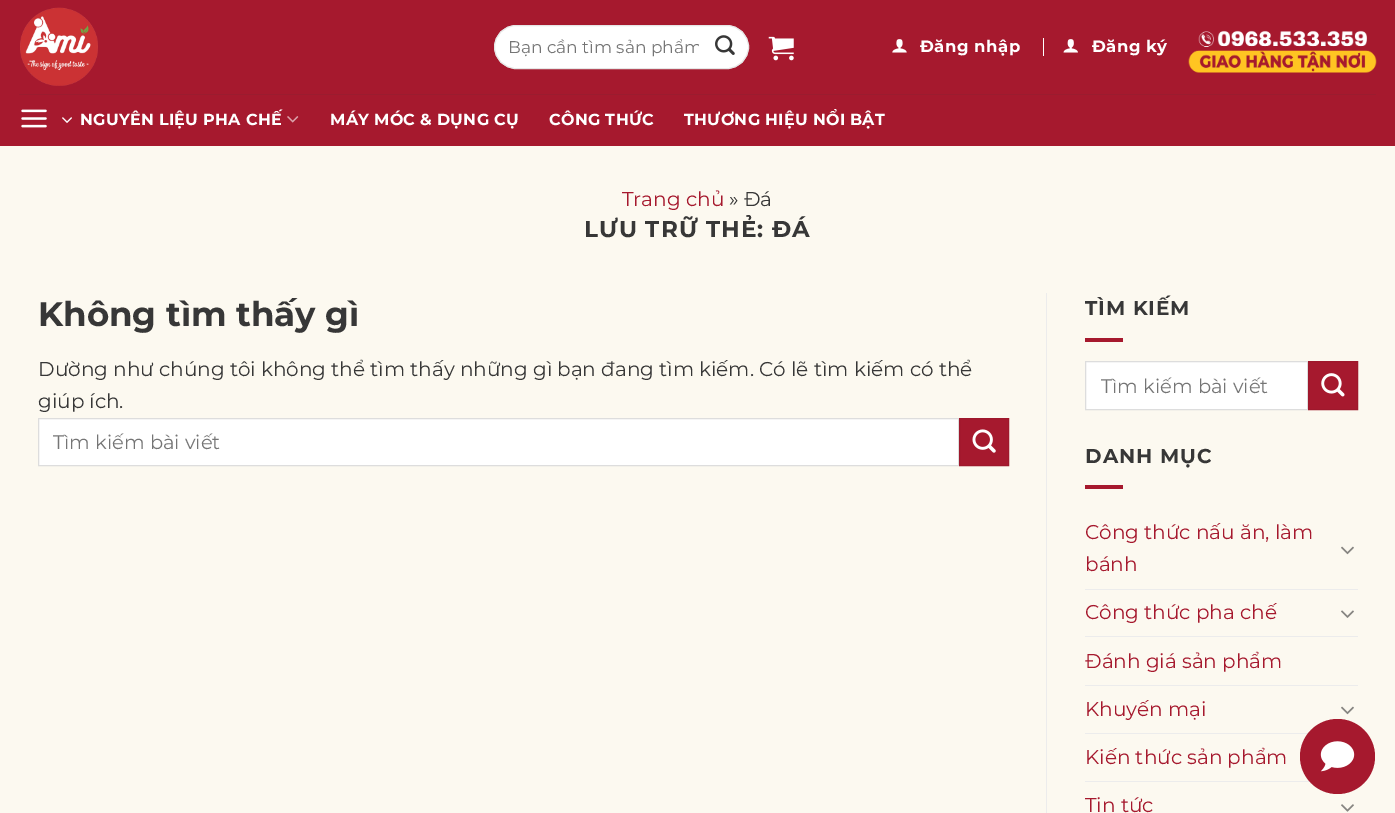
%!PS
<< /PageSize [1395 813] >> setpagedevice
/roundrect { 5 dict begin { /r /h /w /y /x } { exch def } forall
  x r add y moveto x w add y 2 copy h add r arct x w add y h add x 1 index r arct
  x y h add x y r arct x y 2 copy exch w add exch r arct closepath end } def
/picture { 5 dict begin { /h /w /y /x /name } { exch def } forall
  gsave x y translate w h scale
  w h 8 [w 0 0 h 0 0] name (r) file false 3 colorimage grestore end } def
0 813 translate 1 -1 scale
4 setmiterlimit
0.988 0.976 0.941 setrgbcolor
0 0 1395 813 rectfill
0.651 0.098 0.18 setrgbcolor
0 0 1395 146 rectfill
(img1.rgb) 20 7 78 79 picture
1 setgray
494.5 25.5 254 43 21.5 roundrect gsave fill grestore
0.902 setgray
stroke
gsave
508 38 191 20 rectclip
/Montserrat-Regular [17 0 0 -17 0 0] selectfont
0.459 setgray
508 53 moveto (Bạn cần tìm sản phẩm) show
grestore
(img2.rgb) 715 35 20 20 picture
(img3.rgb) 768 36 26 25 picture
(img4.rgb) 892 39 15 14 picture
/Montserrat-Bold [16.5 0 0 -16.5 0 0] selectfont
1 setgray
920 52 moveto 0.5 0 (Đăng nhập) ashow
1043 38 1 18 rectfill
(img5.rgb) 1063 39 15 14 picture
1092 52 moveto 0.5 0 (Đăng ký) ashow
(img6.rgb) 1188 30 189 43 picture
0.608 0.11 0.184 setrgbcolor
19 94 1357 1 rectfill
(img7.rgb) 21 109 26 19 picture
(img8.rgb) 62 117 10 6 picture
/Montserrat-Bold [16 0 0 -16 0 0] selectfont
1 setgray
80 125 moveto 0.3 0 (NGUYÊN LIỆU PHA CHẾ) ashow
(img9.rgb) 287 116 12 7 picture
330 125 moveto 0.3 0 (MÁY MÓC & DỤNG CỤ) ashow
549 125 moveto 0.3 0 (CÔNG THỨC) ashow
684 125 moveto 0.3 0 (THƯƠNG HIỆU NỔI BẬT) ashow
/Montserrat-Regular [20 0 0 -20 0 0] selectfont
0.651 0.098 0.18 setrgbcolor
622 206 moveto (Trang chủ) show
0.216 setgray
729 206 moveto (» Đá) show
/Montserrat-Bold [23 0 0 -23 0 0] selectfont
584 237 moveto 1.1 0 (LƯU TRỮ THẺ: ĐÁ) ashow
/Montserrat-Bold [34 0 0 -34 0 0] selectfont
38 326 moveto (Không tìm thấy gì) show
/Montserrat-Regular [20 0 0 -20 0 0] selectfont
38 376 moveto (Dường như chúng tôi không thể tìm thấy những gì bạn đang tìm kiếm. Có lẽ tìm kiếm có thể) show
38 408 moveto (giúp ích.) show
1 setgray
newpath 38.5 418.5 moveto 958.5 418.5 lineto 958.5 465.5 lineto 38.5 465.5 lineto closepath gsave fill grestore
0.867 setgray
stroke
/Montserrat-Regular [19.5 0 0 -19.5 0 0] selectfont
0.459 setgray
53 449 moveto (Tìm kiếm bài viết) show
0.651 0.098 0.18 setrgbcolor
newpath 959.5 418.5 moveto 1008.5 418.5 lineto 1008.5 465.5 lineto 959.5 465.5 lineto closepath gsave fill grestore
0.62 0.094 0.173 setrgbcolor
stroke
(img10.rgb) 972 429 24 24 picture
0.925 setgray
1046 293 1 520 rectfill
/Montserrat-Bold [20 0 0 -20 0 0] selectfont
0.216 setgray
1085 315 moveto 1 0 (TÌM KIẾM) ashow
0.651 0.098 0.18 setrgbcolor
1085 338 38 4 rectfill
1 setgray
newpath 1085.5 361.5 moveto 1307.5 361.5 lineto 1307.5 409.5 lineto 1085.5 409.5 lineto closepath gsave fill grestore
0.867 setgray
stroke
/Montserrat-Regular [19.5 0 0 -19.5 0 0] selectfont
0.459 setgray
1101 393 moveto (Tìm kiếm bài viết) show
0.651 0.098 0.18 setrgbcolor
newpath 1308.5 361.5 moveto 1357.5 361.5 lineto 1357.5 409.5 lineto 1308.5 409.5 lineto closepath gsave fill grestore
0.62 0.094 0.173 setrgbcolor
stroke
(img11.rgb) 1321 373 24 24 picture
/Montserrat-Bold [20 0 0 -20 0 0] selectfont
0.216 setgray
1085 463 moveto 1 0 (DANH MỤC) ashow
0.651 0.098 0.18 setrgbcolor
1085 485 38 4 rectfill
/Montserrat-Regular [20 0 0 -20 0 0] selectfont
1085 539 moveto (Công thức nấu ăn, làm) show
1085 571 moveto (bánh) show
(img12.rgb) 1341 546 13 9 picture
0.925 setgray
1085 589 273 1 rectfill
0.651 0.098 0.18 setrgbcolor
1085 619 moveto (Công thức pha chế) show
(img13.rgb) 1341 610 13 8 picture
0.925 setgray
1085 636 273 1 rectfill
0.651 0.098 0.18 setrgbcolor
1085 668 moveto (Đánh giá sản phẩm) show
0.925 setgray
1085 685 273 1 rectfill
0.651 0.098 0.18 setrgbcolor
1085 716 moveto (Khuyến mại) show
(img12.rgb) 1341 706 13 9 picture
0.925 setgray
1085 733 224 1 rectfill
0.651 0.098 0.18 setrgbcolor
1085 764 moveto (Kiến thức sản phẩm) show
0.925 setgray
1085 781 225 1 rectfill
0.651 0.098 0.18 setrgbcolor
1085 812 moveto (Tin tức) show
(img14.rgb) 1341 804 13 8 picture
newpath 1337.5 756.5 37.5 0 360 arc closepath fill
(img15.rgb) 1320 741 35 31 picture
showpage
